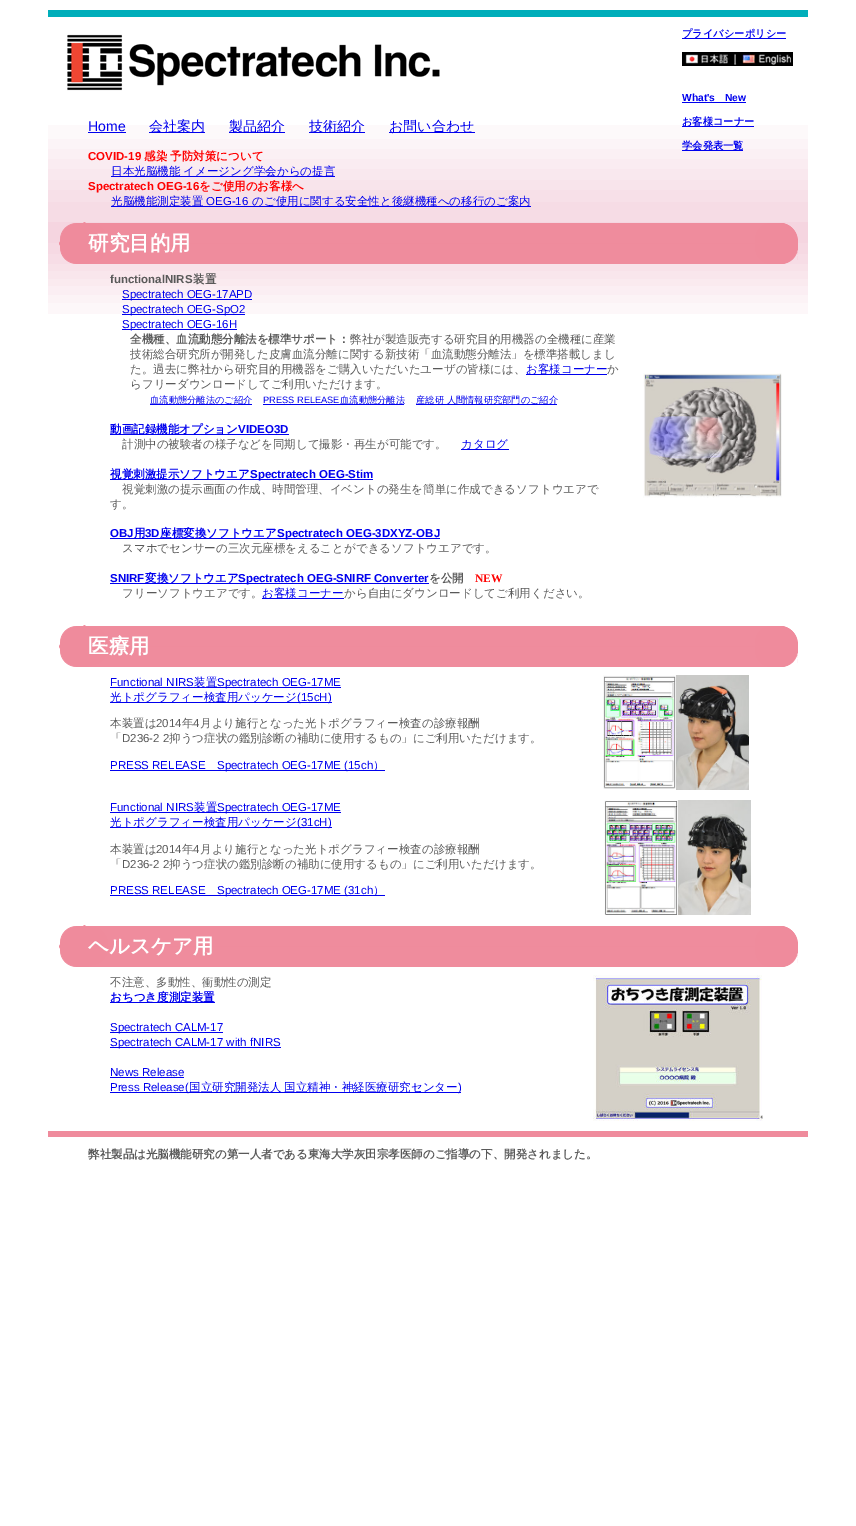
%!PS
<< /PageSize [856 1526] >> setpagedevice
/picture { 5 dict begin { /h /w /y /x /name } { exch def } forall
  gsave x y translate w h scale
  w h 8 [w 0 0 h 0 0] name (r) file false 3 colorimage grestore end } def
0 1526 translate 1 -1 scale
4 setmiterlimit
1 setgray
0 0 856 1526 rectfill
(img1.rgb) 48 10 760 212 picture
0 0 0.933 setrgbcolor
682 38 104 1 rectfill
/WenQuanYiZenHei-Bold [10.25 0 0 -10.25 0 0] selectfont
682 37 moveto (プライバシーポリシー) show
(img2.rgb) 682 52 111 14 picture
/LiberationSans-Bold [10.25 0 0 -10.25 0 0] selectfont
682 101 moveto (What's) show
682 102 64 1 rectfill
725 101 moveto (New) show
682 126 72 1 rectfill
/WenQuanYiZenHei-Bold [10.25 0 0 -10.25 0 0] selectfont
682 125 moveto (お客様コーナー) show
682 150 61 1 rectfill
682 149 moveto (学会発表一覧) show
(img3.rgb) 67 34 373 57 picture
/LiberationSans-Regular [14 0 0 -14 0 0] selectfont
88 131 moveto (Home) show
88 132 38 1 rectfill
149 132 56 1 rectfill
/WenQuanYiZenHei-Medium [14 0 0 -14 0 0] selectfont
149 131 moveto (会社案内) show
229 132 56 1 rectfill
229 131 moveto (製品紹介) show
309 132 56 1 rectfill
309 131 moveto (技術紹介) show
389 132 86 1 rectfill
389 131 moveto (お問い合わせ) show
/LiberationSans-Bold [11.5 0 0 -11.5 0 0] selectfont
1 0 0 setrgbcolor
88 160 moveto (COVID-19) show
/WenQuanYiZenHei-Bold [11.5 0 0 -11.5 0 0] selectfont
144 160 moveto (感染 予防対策について) show
0 0 0.933 setrgbcolor
111 176 224 1 rectfill
/WenQuanYiZenHei-Medium [11.5 0 0 -11.5 0 0] selectfont
111 175 moveto (日本光脳機能 イメージング学会からの提言) show
/LiberationSans-Bold [11.5 0 0 -11.5 0 0] selectfont
1 0 0 setrgbcolor
88 190 moveto (Spectratech OEG-16) show
/WenQuanYiZenHei-Bold [11.5 0 0 -11.5 0 0] selectfont
199 190 moveto (をご使用のお客様へ) show
0 0 0.933 setrgbcolor
111 206 420 1 rectfill
/WenQuanYiZenHei-Medium [11.5 0 0 -11.5 0 0] selectfont
111 205 moveto (光脳機能測定装置) show
/LiberationSans-Regular [11.5 0 0 -11.5 0 0] selectfont
206 205 moveto (OEG-16) show
/WenQuanYiZenHei-Medium [11.5 0 0 -11.5 0 0] selectfont
252 205 moveto (のご使用に関する安全性と後継機種への移行のご案内) show
(img4.rgb) 48 222 760 92 picture
(img5.rgb) 59 222 739 42 picture
/WenQuanYiZenHei-Bold [20.5 0 0 -20.5 0 0] selectfont
1 setgray
88 250 moveto (研究目的用) show
/LiberationSans-Bold [11.5 0 0 -11.5 0 0] selectfont
0.349 setgray
110 283 moveto (functionalNIRS) show
/WenQuanYiZenHei-Bold [11.5 0 0 -11.5 0 0] selectfont
193 283 moveto (装置) show
0 0 0.933 setrgbcolor
122 299 130 1 rectfill
/LiberationSans-Regular [11.5 0 0 -11.5 0 0] selectfont
122 298 moveto (Spectratech OEG-17APD) show
122 314 123 1 rectfill
122 313 moveto (Spectratech OEG-SpO2) show
122 329 115 1 rectfill
122 328 moveto (Spectratech OEG-16H) show
/WenQuanYiZenHei-Bold [11.5 0 0 -11.5 0 0] selectfont
0.349 setgray
130 343 moveto (全機種、血流動態分離法を標準サポート：) show
/WenQuanYiZenHei-Medium [11.5 0 0 -11.5 0 0] selectfont
350 343 moveto (弊社が製造販売する研究目的用機器の全機種に産業) show
130 358 moveto (技術総合研究所が開発した皮膚血流分離に関する新技術「血流動態分離法」を標準搭載しまし) show
130 373 moveto (た。過去に弊社から研究目的用機器をご購入いただいたユーザの皆様には、) show
0 0 0.933 setrgbcolor
526 374 81 1 rectfill
526 373 moveto (お客様コーナー) show
0.349 setgray
607 373 moveto (か) show
130 388 moveto (らフリーダウンロードしてご利用いただけます。) show
0 0 0.933 setrgbcolor
150 404 102 1 rectfill
/WenQuanYiZenHei-Medium [9.25 0 0 -9.25 0 0] selectfont
150 403 moveto (血流動態分離法のご紹介) show
/LiberationSans-Regular [9.25 0 0 -9.25 0 0] selectfont
263 403 moveto (PRESS RELEASE) show
263 404 141 1 rectfill
/WenQuanYiZenHei-Medium [9.25 0 0 -9.25 0 0] selectfont
340 403 moveto (血流動態分離法) show
416 404 141 1 rectfill
416 403 moveto (産総研 人間情報研究部門のご紹介) show
110 434 179 1 rectfill
/WenQuanYiZenHei-Bold [11.5 0 0 -11.5 0 0] selectfont
110 433 moveto (動画記録機能オプション) show
/LiberationSans-Bold [11.5 0 0 -11.5 0 0] selectfont
238 433 moveto (VIDEO3D) show
/WenQuanYiZenHei-Medium [11.5 0 0 -11.5 0 0] selectfont
0.349 setgray
122 448 moveto (計測中の被験者の様子などを同期して撮影・再生が可能です。) show
0 0 0.933 setrgbcolor
461 449 48 1 rectfill
461 448 moveto (カタログ) show
110 479 263 1 rectfill
/WenQuanYiZenHei-Bold [11.5 0 0 -11.5 0 0] selectfont
110 478 moveto (視覚刺激提示ソフトウエア) show
/LiberationSans-Bold [11.5 0 0 -11.5 0 0] selectfont
250 478 moveto (Spectratech OEG-Stim) show
/WenQuanYiZenHei-Medium [11.5 0 0 -11.5 0 0] selectfont
0.349 setgray
122 493 moveto (視覚刺激の提示画面の作成、時間管理、イベントの発生を簡単に作成できるソフトウエアで) show
110 508 moveto (す。) show
/LiberationSans-Bold [11.5 0 0 -11.5 0 0] selectfont
0 0 0.933 setrgbcolor
110 537 moveto (OBJ) show
110 538 330 1 rectfill
/WenQuanYiZenHei-Bold [11.5 0 0 -11.5 0 0] selectfont
134 537 moveto (用) show
/LiberationSans-Bold [11.5 0 0 -11.5 0 0] selectfont
145 537 moveto (3D) show
/WenQuanYiZenHei-Bold [11.5 0 0 -11.5 0 0] selectfont
160 537 moveto (座標変換ソフトウエア) show
/LiberationSans-Bold [11.5 0 0 -11.5 0 0] selectfont
277 537 moveto (Spectratech OEG-3DXYZ-OBJ) show
/WenQuanYiZenHei-Medium [11.5 0 0 -11.5 0 0] selectfont
0.349 setgray
122 552 moveto (スマホでセンサーの三次元座標をえることができるソフトウエアです。) show
/LiberationSans-Bold [11.5 0 0 -11.5 0 0] selectfont
0 0 0.933 setrgbcolor
110 582 moveto (SNIRF) show
110 583 319 1 rectfill
/WenQuanYiZenHei-Bold [11.5 0 0 -11.5 0 0] selectfont
145 582 moveto (変換ソフトウエア) show
/LiberationSans-Bold [11.5 0 0 -11.5 0 0] selectfont
238 582 moveto (Spectratech OEG-SNIRF Converter) show
/WenQuanYiZenHei-Bold [11.5 0 0 -11.5 0 0] selectfont
0.349 setgray
429 582 moveto (を公開) show
/LiberationSerif-Bold [11.5 0 0 -11.5 0 0] selectfont
1 0 0 setrgbcolor
475 582 moveto (NEW) show
/WenQuanYiZenHei-Medium [11.5 0 0 -11.5 0 0] selectfont
0.349 setgray
122 597 moveto (フリーソフトウエアです。) show
0 0 0.933 setrgbcolor
262 598 82 1 rectfill
262 597 moveto (お客様コーナー) show
0.349 setgray
344 597 moveto (から自由にダウンロードしてご利用ください。) show
(img6.rgb) 643 373 139 125 picture
(img7.rgb) 59 625 739 42 picture
/WenQuanYiZenHei-Bold [20.5 0 0 -20.5 0 0] selectfont
1 setgray
88 653 moveto (医療用) show
/LiberationSans-Regular [11.5 0 0 -11.5 0 0] selectfont
0 0 0.933 setrgbcolor
110 686 moveto (Functional NIRS) show
110 687 231 1 rectfill
/WenQuanYiZenHei-Medium [11.5 0 0 -11.5 0 0] selectfont
194 686 moveto (装置) show
/LiberationSans-Regular [11.5 0 0 -11.5 0 0] selectfont
217 686 moveto (Spectratech OEG-17ME) show
110 702 222 1 rectfill
/WenQuanYiZenHei-Medium [11.5 0 0 -11.5 0 0] selectfont
110 701 moveto (光トポグラフィー検査用パッケージ) show
/LiberationSans-Regular [11.5 0 0 -11.5 0 0] selectfont
297 701 moveto (\(15cH\)) show
/WenQuanYiZenHei-Medium [11.5 0 0 -11.5 0 0] selectfont
0.349 setgray
110 727 moveto (本装置は) show
/LiberationSans-Regular [11.5 0 0 -11.5 0 0] selectfont
156 727 moveto (2014) show
/WenQuanYiZenHei-Medium [11.5 0 0 -11.5 0 0] selectfont
182 727 moveto (年) show
/LiberationSans-Regular [11.5 0 0 -11.5 0 0] selectfont
193 727 moveto (4) show
/WenQuanYiZenHei-Medium [11.5 0 0 -11.5 0 0] selectfont
200 727 moveto (月より施行となった光トポグラフィー検査の診療報酬) show
110 742 moveto (「) show
/LiberationSans-Regular [11.5 0 0 -11.5 0 0] selectfont
122 742 moveto (D236-2 2) show
/WenQuanYiZenHei-Medium [11.5 0 0 -11.5 0 0] selectfont
169 742 moveto (抑うつ症状の鑑別診断の補助に使用するもの」にご利用いただけます。) show
/LiberationSans-Regular [11.5 0 0 -11.5 0 0] selectfont
0 0 0.933 setrgbcolor
110 769 moveto (PRESS RELEASE) show
110 770 275 1 rectfill
217 769 moveto (Spectratech OEG-17ME \(15ch) show
/WenQuanYiZenHei-Medium [11.5 0 0 -11.5 0 0] selectfont
373 769 moveto (）) show
(img8.rgb) 603 675 73 114 picture
(img9.rgb) 676 675 73 115 picture
/LiberationSans-Regular [11.5 0 0 -11.5 0 0] selectfont
110 811 moveto (Functional NIRS) show
110 812 231 1 rectfill
/WenQuanYiZenHei-Medium [11.5 0 0 -11.5 0 0] selectfont
194 811 moveto (装置) show
/LiberationSans-Regular [11.5 0 0 -11.5 0 0] selectfont
217 811 moveto (Spectratech OEG-17ME) show
110 827 222 1 rectfill
/WenQuanYiZenHei-Medium [11.5 0 0 -11.5 0 0] selectfont
110 826 moveto (光トポグラフィー検査用パッケージ) show
/LiberationSans-Regular [11.5 0 0 -11.5 0 0] selectfont
297 826 moveto (\(31cH\)) show
/WenQuanYiZenHei-Medium [11.5 0 0 -11.5 0 0] selectfont
0.349 setgray
110 853 moveto (本装置は) show
/LiberationSans-Regular [11.5 0 0 -11.5 0 0] selectfont
156 853 moveto (2014) show
/WenQuanYiZenHei-Medium [11.5 0 0 -11.5 0 0] selectfont
182 853 moveto (年) show
/LiberationSans-Regular [11.5 0 0 -11.5 0 0] selectfont
193 853 moveto (4) show
/WenQuanYiZenHei-Medium [11.5 0 0 -11.5 0 0] selectfont
200 853 moveto (月より施行となった光トポグラフィー検査の診療報酬) show
110 868 moveto (「) show
/LiberationSans-Regular [11.5 0 0 -11.5 0 0] selectfont
122 868 moveto (D236-2 2) show
/WenQuanYiZenHei-Medium [11.5 0 0 -11.5 0 0] selectfont
169 868 moveto (抑うつ症状の鑑別診断の補助に使用するもの」にご利用いただけます。) show
/LiberationSans-Regular [11.5 0 0 -11.5 0 0] selectfont
0 0 0.933 setrgbcolor
110 894 moveto (PRESS RELEASE) show
110 895 275 1 rectfill
217 894 moveto (Spectratech OEG-17ME \(31ch) show
/WenQuanYiZenHei-Medium [11.5 0 0 -11.5 0 0] selectfont
373 894 moveto (）) show
(img10.rgb) 604 800 74 115 picture
(img11.rgb) 678 800 73 115 picture
(img7.rgb) 59 925 739 42 picture
/WenQuanYiZenHei-Bold [20.5 0 0 -20.5 0 0] selectfont
1 setgray
88 953 moveto (ヘルスケア用) show
/WenQuanYiZenHei-Medium [11.5 0 0 -11.5 0 0] selectfont
0.349 setgray
110 986 moveto (不注意、多動性、衝動性の測定) show
0 0 0.933 setrgbcolor
110 1002 105 1 rectfill
/WenQuanYiZenHei-Bold [11.5 0 0 -11.5 0 0] selectfont
110 1001 moveto (おちつき度測定装置) show
110 1032 113 1 rectfill
/LiberationSans-Regular [11.5 0 0 -11.5 0 0] selectfont
110 1031 moveto (Spectratech CALM-17) show
110 1047 171 1 rectfill
110 1046 moveto (Spectratech CALM-17 with fNIRS) show
110 1076 moveto (News Release) show
110 1077 74 1 rectfill
110 1092 351 1 rectfill
110 1091 moveto (Press Release\() show
/WenQuanYiZenHei-Medium [11.5 0 0 -11.5 0 0] selectfont
189 1091 moveto (国立研究開発法人 国立精神・神経医療研究センター) show
/LiberationSans-Regular [11.5 0 0 -11.5 0 0] selectfont
458 1091 moveto (\)) show
(img12.rgb) 593 975 170 146 picture
0.937 0.545 0.612 setrgbcolor
48 1131 760 6 rectfill
/WenQuanYiZenHei-Bold [11.5 0 0 -11.5 0 0] selectfont
0.349 setgray
88 1158 moveto (弊社製品は光脳機能研究の第一人者である東海大学灰田宗孝医師のご指導の下、開発されました。) show
showpage
